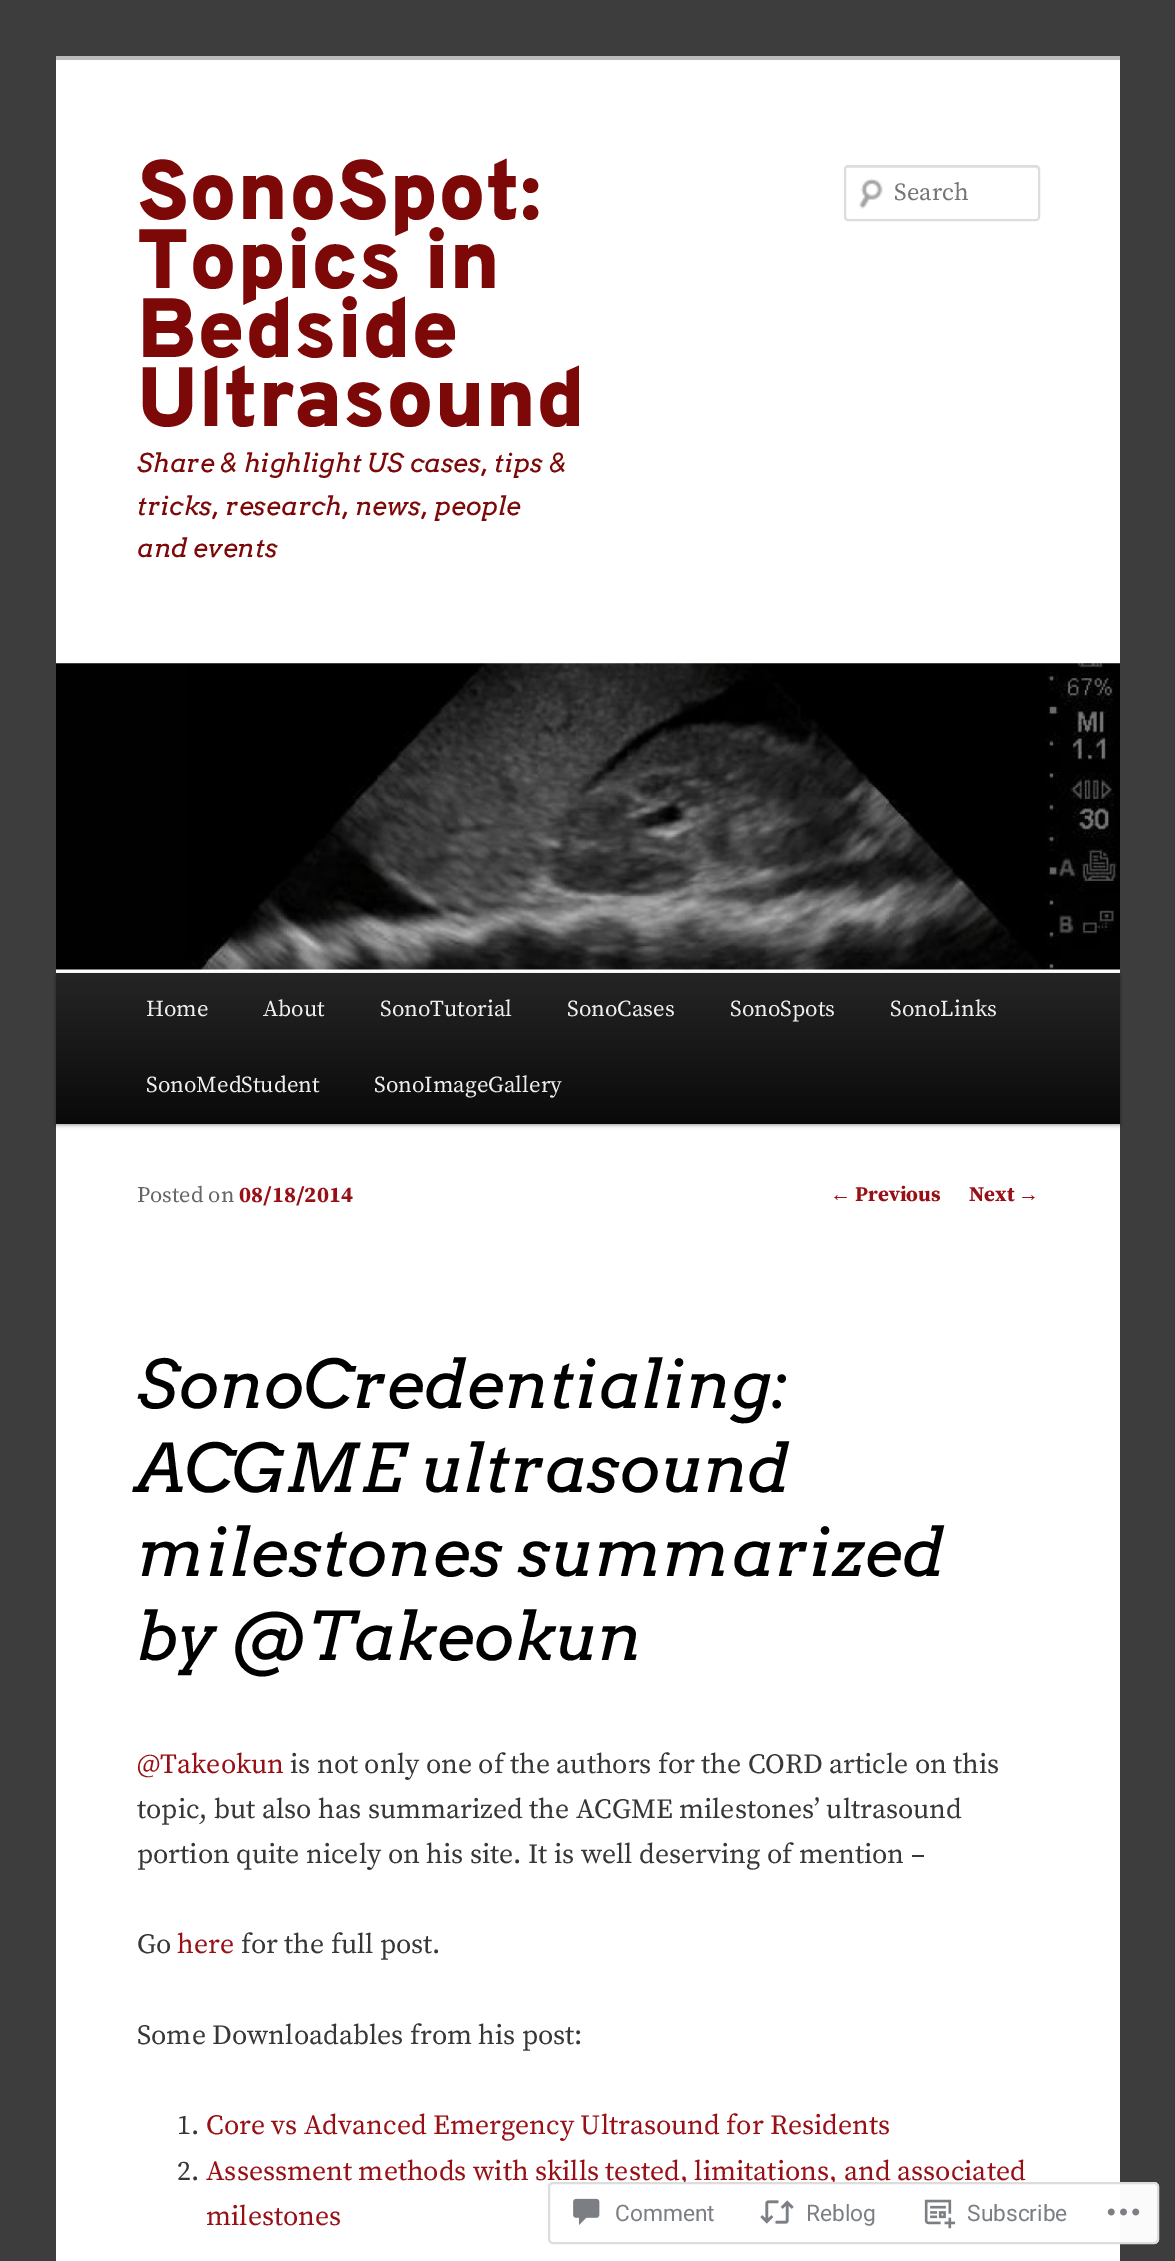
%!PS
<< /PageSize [1175 2261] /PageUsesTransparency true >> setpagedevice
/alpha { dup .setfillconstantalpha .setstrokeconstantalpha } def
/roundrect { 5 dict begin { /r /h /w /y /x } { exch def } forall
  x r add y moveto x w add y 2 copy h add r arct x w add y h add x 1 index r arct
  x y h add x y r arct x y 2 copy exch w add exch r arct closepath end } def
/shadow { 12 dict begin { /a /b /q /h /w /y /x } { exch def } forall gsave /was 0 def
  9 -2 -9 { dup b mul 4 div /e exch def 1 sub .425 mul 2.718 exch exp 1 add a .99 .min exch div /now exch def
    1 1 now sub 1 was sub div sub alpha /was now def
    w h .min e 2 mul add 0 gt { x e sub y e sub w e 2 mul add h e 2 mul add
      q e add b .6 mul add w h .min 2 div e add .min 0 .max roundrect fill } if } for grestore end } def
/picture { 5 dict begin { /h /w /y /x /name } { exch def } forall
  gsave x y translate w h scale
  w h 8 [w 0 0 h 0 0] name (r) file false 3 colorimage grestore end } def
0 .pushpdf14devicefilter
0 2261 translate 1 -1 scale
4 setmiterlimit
0.243 0.239 0.239 setrgbcolor
0 0 1175 2261 rectfill
1 setgray
56 60 1064 2201 rectfill
0.733 setgray
56 56 1064 4 rectfill
/Overpass-Black [84 0 0 -84 0 0] selectfont
0.49 0.031 0.031 setrgbcolor
137 219 moveto (SonoSpot:) show
137 288 moveto (Topics in) show
137 357 moveto (Bedside) show
137 426 moveto (Ultrasound) show
/Arvo-Italic [25.9 0 0 -25.9 0 0] selectfont
137 472 moveto (Share & highlight US cases, tips &) show
137 515 moveto (tricks, research, news, people) show
137 557 moveto (and events) show
(img1.rgb) 859 178 24 31 picture
0.902 setgray
newpath 847 168 moveto 1036 168 lineto 1038 169 lineto 1038 170 lineto 1038 168 1038 166 1036 166 curveto 847 166 lineto 845 166 845 168 845 170 curveto 845 169 846 168 847 168 curveto closepath fill
0.867 setgray
2 setlinewidth
845 166 194 54 3 roundrect stroke
/SourceSerifPro-Regular [24.5 0 0 -24.5 0 0] selectfont
0.459 setgray
894 200 moveto (Search) show
0 setgray
56 975 1064 150 0 2 0.4 shadow
(img2.rgb) 56 663 1064 307 picture
gsave newpath 56 973 moveto 1120 973 lineto 1120 1124 lineto 56 1124 lineto closepath clip newpath
<< /ShadingType 2 /ColorSpace /DeviceRGB /Coords [588 973 588 1124] /Extend [true true] /Function << /FunctionType 2 /Domain [0 1] /C0 [0.145 0.145 0.145] /C1 [0.039 0.039 0.039] /N 1 >> >> shfill grestore
/SourceSerifPro-Regular [22.75 0 0 -22.75 0 0] selectfont
0.933 setgray
146 1016 moveto (Home) show
263 1016 moveto (About) show
380 1016 moveto (SonoTutorial) show
567 1016 moveto (SonoCases) show
730 1016 moveto (SonoSpots) show
890 1016 moveto (SonoLinks) show
146 1092 moveto (SonoMedStudent) show
374 1092 moveto (SonoImageGallery) show
/SourceSerifPro-Regular [22.25 0 0 -22.25 0 0] selectfont
0.4 setgray
137 1202 moveto (Posted on) show
/SourceSerifPro-Bold [22.25 0 0 -22.25 0 0] selectfont
0.596 0.063 0.082 setrgbcolor
239 1202 moveto (08/18/2014) show
/Arvo-Italic [66.8 0 0 -66.8 0 0] selectfont
0 setgray
137 1408 moveto (SonoCredentialing:) show
137 1492 moveto (ACGME ultrasound) show
137 1576 moveto (milestones summarized) show
137 1660 moveto (by @Takeokun) show
/SourceSerifPro-Regular [27.8 0 0 -27.8 0 0] selectfont
0.596 0.063 0.082 setrgbcolor
137 1773 moveto (@Takeokun) show
0.216 setgray
290 1773 moveto (is not only one of the authors for the CORD article on this) show
137 1818 moveto (topic, but also has summarized the ACGME milestones’ ultrasound) show
137 1863 moveto (portion quite nicely on his site. It is well deserving of mention –) show
137 1953 moveto (Go) show
0.596 0.063 0.082 setrgbcolor
177 1953 moveto (here) show
0.216 setgray
241 1953 moveto (for the full post.) show
137 2044 moveto (Some Downloadables from his post:) show
177 2134 moveto (1.) show
0.596 0.063 0.082 setrgbcolor
206 2134 moveto (Core vs Advanced Emergency Ultrasound for Residents) show
0.216 setgray
177 2180 moveto (2.) show
0.596 0.063 0.082 setrgbcolor
206 2180 moveto (Assessment methods with skills tested, limitations, and associated) show
206 2225 moveto (milestones) show
/LiberationSerif-Regular [21 0 0 -21 0 0] selectfont
830 1201 moveto (←) show
/SourceSerifPro-Bold [21 0 0 -21 0 0] selectfont
855 1201 moveto (Previous) show
969 1201 moveto (Next) show
/LiberationSerif-Regular [21 0 0 -21 0 0] selectfont
1018 1201 moveto (→) show
0.98 alpha
1 setgray
548 2182 611 62 5 roundrect fill
0.863 0.863 0.871 setrgbcolor
549 2183 609 60 4 roundrect stroke
1 alpha
(img3.rgb) 573 2198 27 27 picture
/Roboto-Regular [22.75 0 0 -22.75 0 0] selectfont
0.482 0.498 0.522 setrgbcolor
615 2221 moveto (Comment) show
(img4.rgb) 760 2200 34 24 picture
806 2221 moveto (Reblog) show
(img5.rgb) 924 2199 32 30 picture
967 2221 moveto (Subscribe) show
(img6.rgb) 1107 2208 33 8 picture
.poppdf14devicefilter showpage
